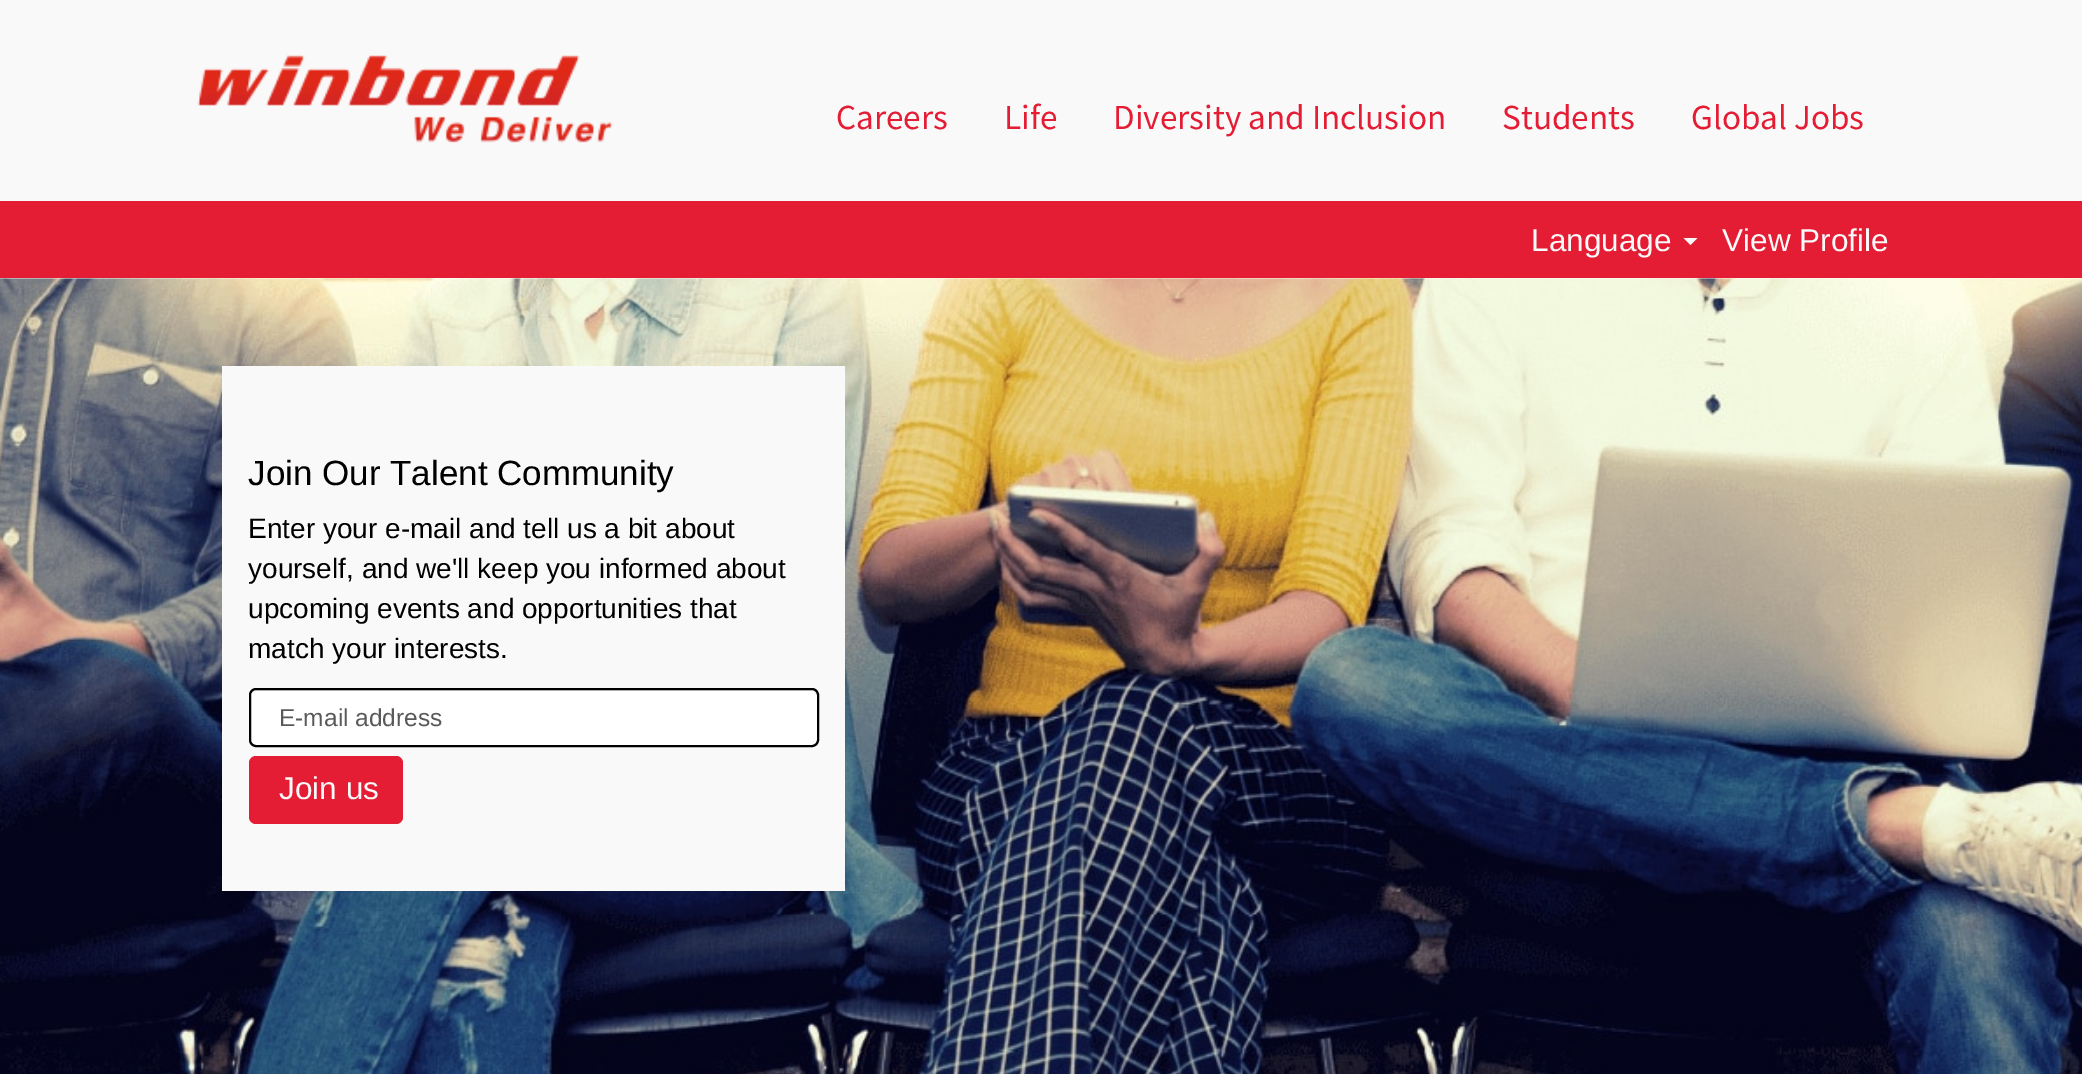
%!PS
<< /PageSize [2082 1074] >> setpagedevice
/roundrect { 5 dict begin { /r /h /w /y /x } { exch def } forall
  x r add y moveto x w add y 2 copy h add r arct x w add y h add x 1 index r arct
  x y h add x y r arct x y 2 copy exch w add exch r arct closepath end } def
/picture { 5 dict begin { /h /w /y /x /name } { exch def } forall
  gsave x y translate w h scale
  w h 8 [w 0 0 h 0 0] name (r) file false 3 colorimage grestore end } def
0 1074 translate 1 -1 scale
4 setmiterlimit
0.976 setgray
0 0 2082 1074 rectfill
(img1.rgb) 197 55 416 88 picture
/NotoSansTC-Regular [31.5 0 0 -31.5 0 0] selectfont
0.894 0.114 0.208 setrgbcolor
836 129 moveto (Careers) show
1004 129 moveto (Life) show
1113 129 moveto (Diversity and Inclusion) show
1502 129 moveto (Students) show
1691 129 moveto (Global Jobs) show
0 201 2082 77 rectfill
/LiberationSans-Regular [31.5 0 0 -31.5 0 0] selectfont
0.976 setgray
1531 251 moveto (Language) show
newpath 1683.5 238 moveto 1697.5 238 lineto 1690.5 245 lineto closepath fill
1722 251 moveto (View Profile) show
(img2.rgb) 0 278 2082 796 picture
222 366 623 525 rectfill
/LiberationSans-Regular [35 0 0 -35 0 0] selectfont
0 setgray
248 485 moveto (Join Our Talent Community) show
/LiberationSans-Regular [28 0 0 -28 0 0] selectfont
248 538 moveto (Enter your e-mail and tell us a bit about) show
248 578 moveto (yourself, and we'll keep you informed about) show
248 618 moveto (upcoming events and opportunities that) show
248 658 moveto (match your interests.) show
1 setgray
249 688 570 59 7 roundrect fill
0.925 setgray
newpath 256 691 moveto 812 691 lineto 815 691 817 694 817 696 curveto 817 693 815 690 812 690 curveto 255 690 lineto 252 690 250 693 250 696 curveto 250 694 253 691 256 691 curveto closepath fill
0 setgray
2 setlinewidth
250 689 568 57 6 roundrect stroke
/LiberationSans-Regular [24.5 0 0 -24.5 0 0] selectfont
0.349 setgray
279 726 moveto (E-mail address) show
0.894 0.114 0.208 setrgbcolor
249 756 154 68 7 roundrect fill
/LiberationSans-Regular [31.5 0 0 -31.5 0 0] selectfont
0.976 setgray
279 799 moveto (Join us) show
showpage
